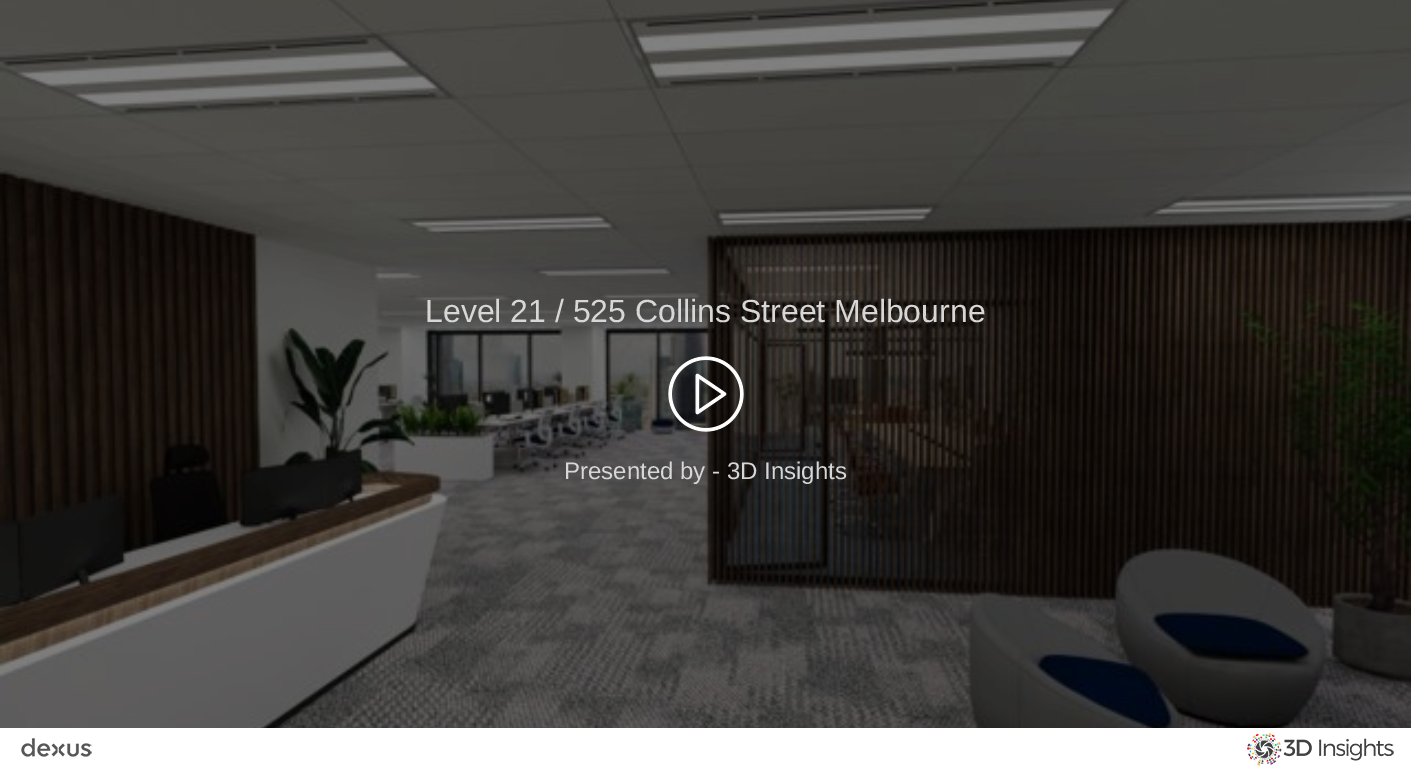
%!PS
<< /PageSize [1411 776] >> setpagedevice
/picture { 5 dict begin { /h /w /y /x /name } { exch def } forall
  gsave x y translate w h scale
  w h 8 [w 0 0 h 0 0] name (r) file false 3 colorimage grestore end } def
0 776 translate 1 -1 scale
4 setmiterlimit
1 setgray
0 0 1411 776 rectfill
(img1.rgb) 0 0 1411 728 picture
/LiberationSans-Regular [32 0 0 -32 0 0] selectfont
0.847 0.843 0.843 setrgbcolor
425 322 moveto (Level 21 / 525 Collins Street Melbourne) show
(img2.rgb) 668 356 76 76 picture
/LiberationSans-Regular [24 0 0 -24 0 0] selectfont
564 479 moveto (Presented by - 3D Insights) show
(img3.rgb) 21 738 71 19 picture
(img4.rgb) 1247 733 147 33 picture
showpage
